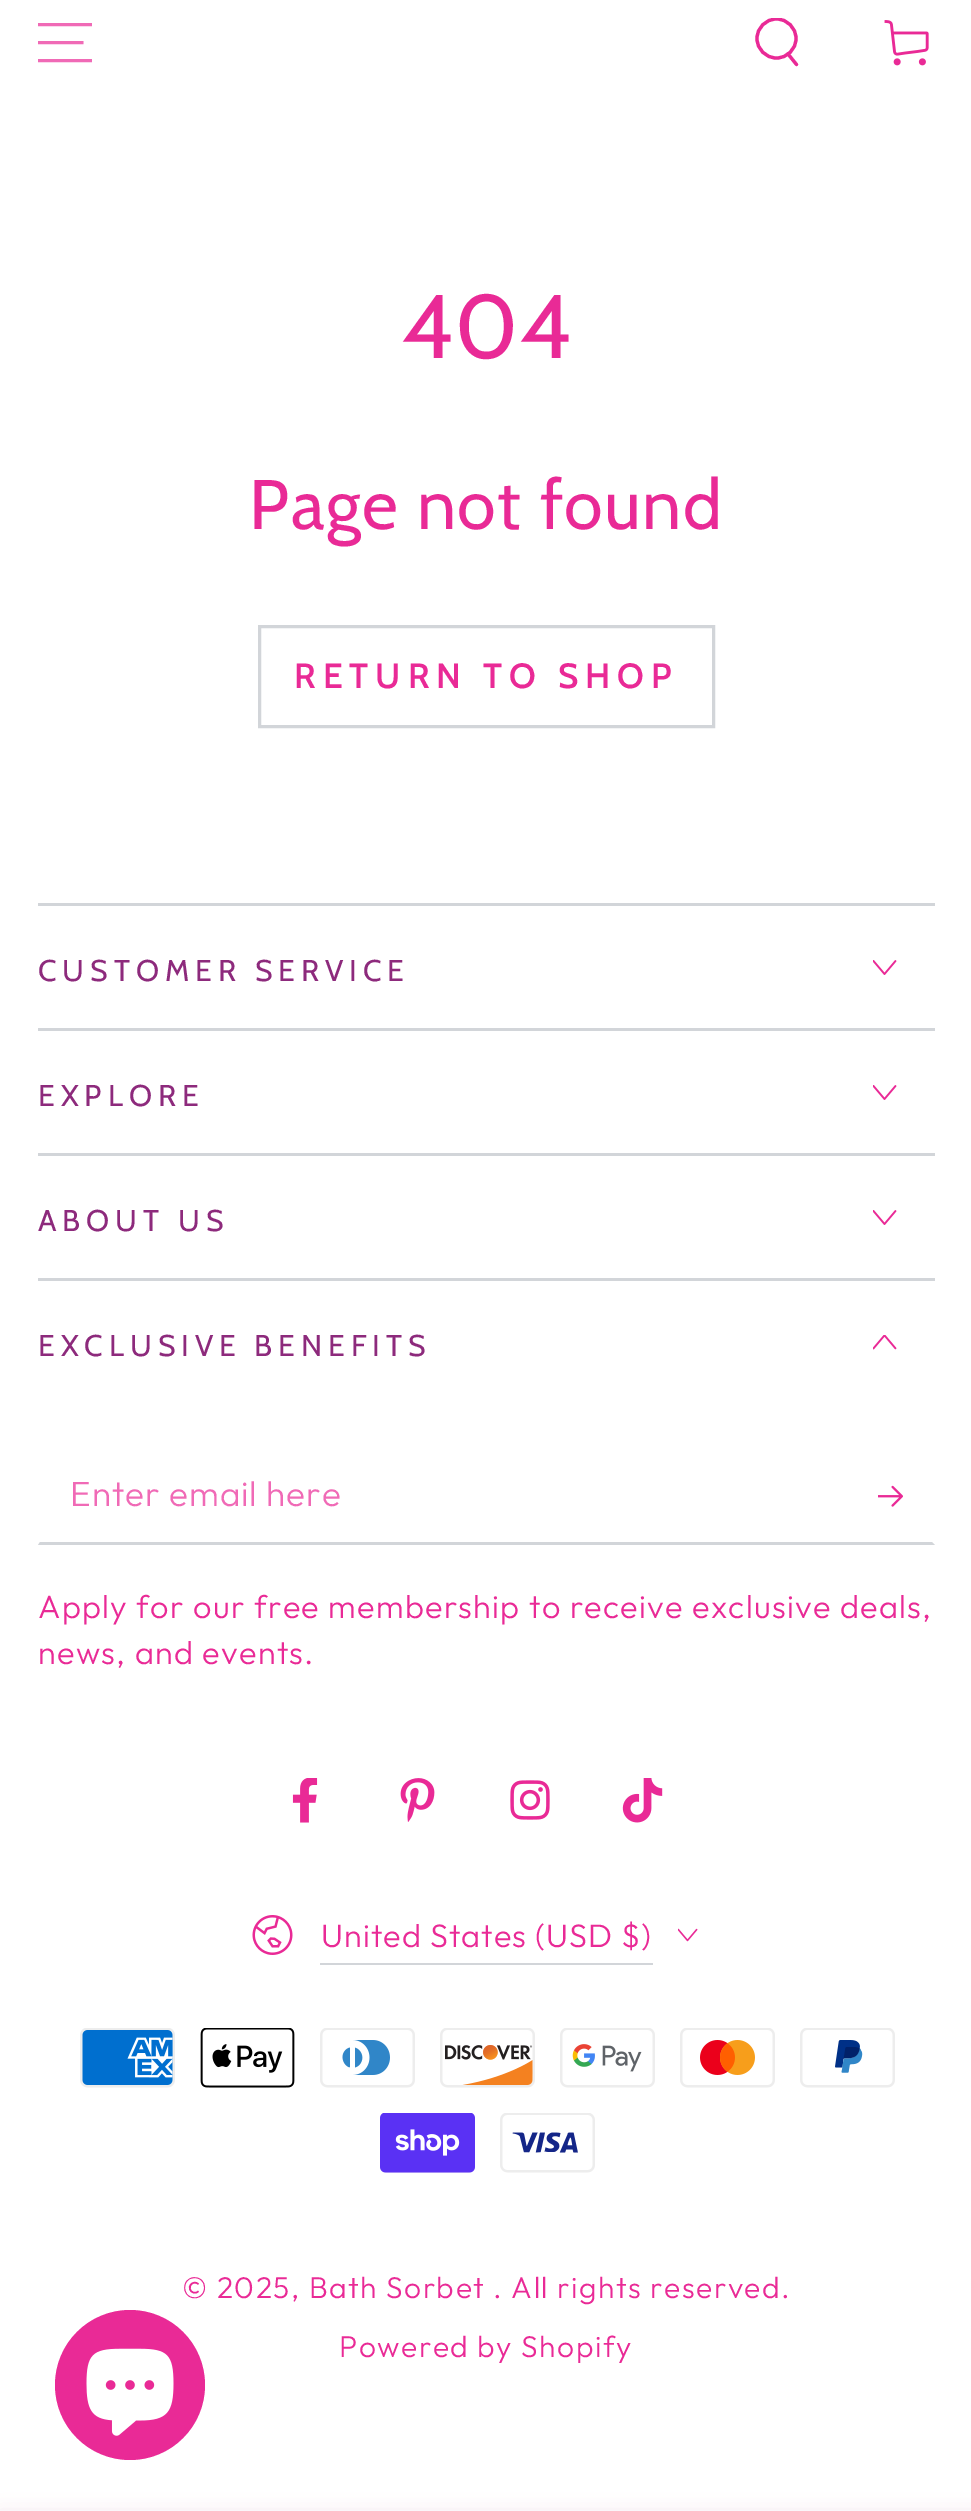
%!PS
<< /PageSize [971 2511] /PageUsesTransparency true >> setpagedevice
/alpha { dup .setfillconstantalpha .setstrokeconstantalpha } def
/roundrect { 5 dict begin { /r /h /w /y /x } { exch def } forall
  x r add y moveto x w add y 2 copy h add r arct x w add y h add x 1 index r arct
  x y h add x y r arct x y 2 copy exch w add exch r arct closepath end } def
/shadow { 12 dict begin { /a /b /q /h /w /y /x } { exch def } forall gsave /was 0 def
  9 -2 -9 { dup b mul 4 div /e exch def 1 sub .425 mul 2.718 exch exp 1 add a .99 .min exch div /now exch def
    1 1 now sub 1 was sub div sub alpha /was now def
    w h .min e 2 mul add 0 gt { x e sub y e sub w e 2 mul add h e 2 mul add
      q e add b .6 mul add w h .min 2 div e add .min 0 .max roundrect fill } if } for grestore end } def
/picture { 5 dict begin { /h /w /y /x /name } { exch def } forall
  gsave x y translate w h scale
  w h 8 [w 0 0 h 0 0] name (r) file false 3 colorimage grestore end } def
0 .pushpdf14devicefilter
0 2511 translate 1 -1 scale
4 setmiterlimit
1 setgray
0 0 971 2511 rectfill
0.941 0.416 0.714 setrgbcolor
3 setlinewidth
newpath 38 60.5 moveto 92 60.5 lineto 38 42.5 moveto 83.5 42.5 lineto 38 24.5 moveto 92 24.5 lineto stroke
gsave
753 18 50 50 rectclip
0.914 0.165 0.588 setrgbcolor
3.2 setlinewidth
newpath 776.5 38.5 19.5 0 360 arc closepath stroke
grestore
0.914 0.165 0.588 setrgbcolor
3.2 setlinewidth
1 setlinecap
newpath 788 54 moveto 796.5 64.5 lineto stroke
(img1.rgb) 884 20 45 46 picture
/Cabin-Regular [90 0 0 -90 0 0] selectfont
401 358 moveto 1.5 0 (404) ashow
/Cabin-Regular [70 0 0 -70 0 0] selectfont
249 529 moveto 1.5 0 (Page not found) ashow
0.824 0.835 0.851 setrgbcolor
3 setlinewidth
0 setlinecap
259.5 626.5 454 100 rectstroke
/Cabin-SemiBold [35 0 0 -35 0 0] selectfont
0.914 0.165 0.588 setrgbcolor
294 688 moveto 7 0 (RETURN TO SHOP) ashow
0.824 0.835 0.851 setrgbcolor
38 903 897 3 rectfill
38 1028 897 3 rectfill
/Cabin-Regular [30 0 0 -30 0 0] selectfont
0.553 0.165 0.486 setrgbcolor
38 981 moveto 6 0 (CUSTOMER SERVICE) ashow
(img2.rgb) 873 960 24 15 picture
0.824 0.835 0.851 setrgbcolor
38 1153 897 3 rectfill
0.553 0.165 0.486 setrgbcolor
38 1106 moveto 6 0 (EXPLORE) ashow
(img2.rgb) 873 1085 24 15 picture
0.824 0.835 0.851 setrgbcolor
38 1278 897 3 rectfill
0.553 0.165 0.486 setrgbcolor
38 1231 moveto 6 0 (ABOUT US) ashow
(img2.rgb) 873 1210 24 15 picture
38 1356 moveto 6 0 (EXCLUSIVE BENEFITS) ashow
(img3.rgb) 873 1335 24 15 picture
0.824 0.835 0.851 setrgbcolor
newpath 935 1545 moveto 38 1545 lineto 40 1542 lineto 932 1542 lineto closepath fill
/Outfit-Light [35 0 0 -35 0 0] selectfont
0.941 0.416 0.714 setrgbcolor
70 1506 moveto 1 0 (Enter email here) ashow
(img4.rgb) 878 1485 25 22 picture
/Outfit-Light [32.5 0 0 -32.5 0 0] selectfont
0.914 0.165 0.588 setrgbcolor
38 1618 moveto 1.25 0 (Apply for our free membership to receive exclusive deals,) ashow
38 1664 moveto 1.25 0 (news, and events.) ashow
(img5.rgb) 292 1778 26 45 picture
(img6.rgb) 400 1778 35 44 picture
(img7.rgb) 510 1780 40 40 picture
(img8.rgb) 622 1778 41 45 picture
(img9.rgb) 252 1915 41 40 picture
0.824 0.835 0.851 setrgbcolor
320 1963 333 2 rectfill
0.914 0.165 0.588 setrgbcolor
321 1947 moveto 1 0 (United States \(USD $\)) ashow
(img10.rgb) 678 1928 20 14 picture
(img11.rgb) 80 2028 95 60 picture
(img12.rgb) 200 2028 95 60 picture
(img13.rgb) 320 2028 95 60 picture
(img14.rgb) 440 2028 95 60 picture
(img15.rgb) 560 2028 95 60 picture
(img16.rgb) 680 2028 95 60 picture
(img17.rgb) 800 2028 95 60 picture
(img18.rgb) 380 2113 95 60 picture
(img19.rgb) 500 2113 95 60 picture
/Outfit-Light [30 0 0 -30 0 0] selectfont
182 2298 moveto 1.5 0 (© 2025, Bath Sorbet . All rights reserved.) ashow
339 2357 moveto 1.5 0 (Powered by Shopify) ashow
newpath 130 2385 75 0 360 arc closepath fill
(img20.rgb) 86 2348 88 88 picture
0.553 0.165 0.486 setrgbcolor
0 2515 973 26 0 10 0.15 shadow
.poppdf14devicefilter showpage
